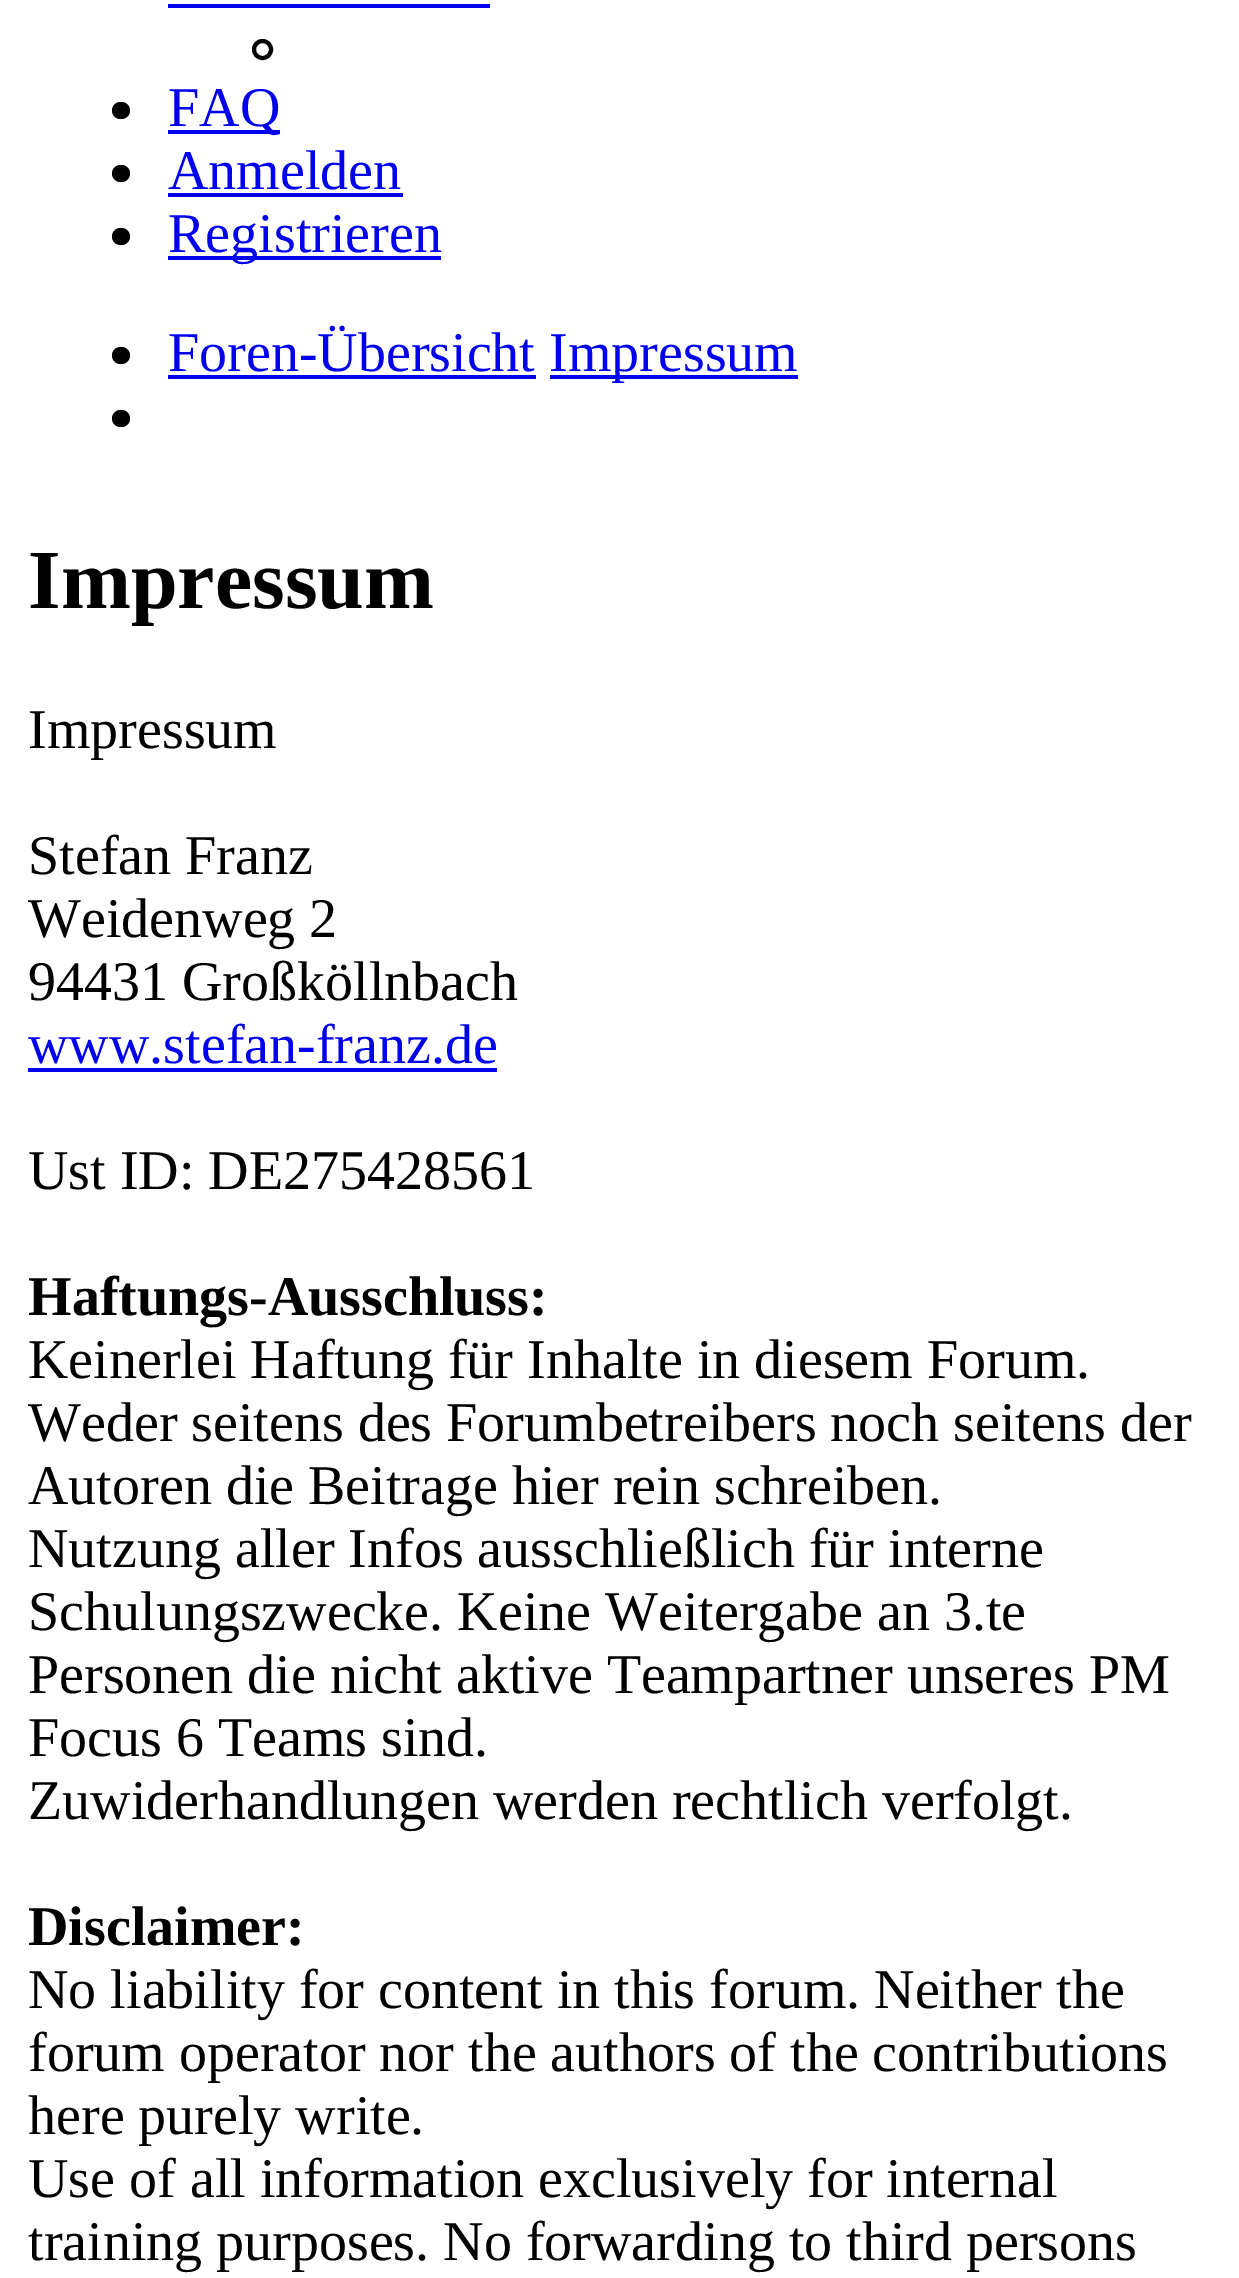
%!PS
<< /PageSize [1239 2278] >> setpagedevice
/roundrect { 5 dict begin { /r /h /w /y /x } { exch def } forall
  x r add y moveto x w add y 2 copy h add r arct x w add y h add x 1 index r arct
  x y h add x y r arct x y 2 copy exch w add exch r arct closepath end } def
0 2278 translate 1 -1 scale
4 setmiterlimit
1 setgray
0 0 1239 2278 rectfill
0 0 0.933 setrgbcolor
168 4 322 4 rectfill
0 setgray
4 setlinewidth
newpath 262.5 49.5 8.5 0 360 arc closepath stroke
112 102 18 17 8.5 roundrect fill
0 0 0.933 setrgbcolor
168 130 112 4 rectfill
/LiberationSerif-Regular [56 0 0 -56 0 0] selectfont
168 126 moveto (FAQ) show
0 setgray
112 165 18 17 8.5 roundrect fill
0 0 0.933 setrgbcolor
168 189 moveto (Anmelden) show
168 193 235 4 rectfill
0 setgray
112 228 18 17 8.5 roundrect fill
0 0 0.933 setrgbcolor
168 256 273 4 rectfill
168 252 moveto (Registrieren) show
0 setgray
112 347 18 17 8.5 roundrect fill
0 0 0.933 setrgbcolor
168 371 moveto (Foren-Übersicht) show
168 375 368 4 rectfill
550 375 248 4 rectfill
549 371 moveto (Impressum) show
0 setgray
112 410 18 17 8.5 roundrect fill
/LiberationSerif-Bold [84 0 0 -84 0 0] selectfont
28 608 moveto (Impressum) show
/LiberationSerif-Regular [56 0 0 -56 0 0] selectfont
28 748 moveto (Impressum) show
28 874 moveto (Stefan Franz) show
28 937 moveto (Weidenweg 2) show
28 1000 moveto (94431 Großköllnbach) show
0 0 0.933 setrgbcolor
28 1063 moveto (www.stefan-franz.de) show
28 1068 469 4 rectfill
0 setgray
28 1189 moveto (Ust ID: DE275428561) show
/LiberationSerif-Bold [56 0 0 -56 0 0] selectfont
28 1315 moveto (Haftungs-Ausschluss:) show
/LiberationSerif-Regular [56 0 0 -56 0 0] selectfont
28 1378 moveto (Keinerlei Haftung für Inhalte in diesem Forum.) show
28 1441 moveto (Weder seitens des Forumbetreibers noch seitens der) show
28 1504 moveto (Autoren die Beitrage hier rein schreiben.) show
28 1567 moveto (Nutzung aller Infos ausschließlich für interne) show
28 1630 moveto (Schulungszwecke. Keine Weitergabe an 3.te) show
28 1693 moveto (Personen die nicht aktive Teampartner unseres PM) show
28 1756 moveto (Focus 6 Teams sind.) show
28 1819 moveto (Zuwiderhandlungen werden rechtlich verfolgt.) show
/LiberationSerif-Bold [56 0 0 -56 0 0] selectfont
28 1945 moveto (Disclaimer:) show
/LiberationSerif-Regular [56 0 0 -56 0 0] selectfont
28 2008 moveto (No liability for content in this forum. Neither the) show
28 2071 moveto (forum operator nor the authors of the contributions) show
28 2134 moveto (here purely write.) show
28 2197 moveto (Use of all information exclusively for internal) show
28 2260 moveto (training purposes. No forwarding to third persons) show
showpage
